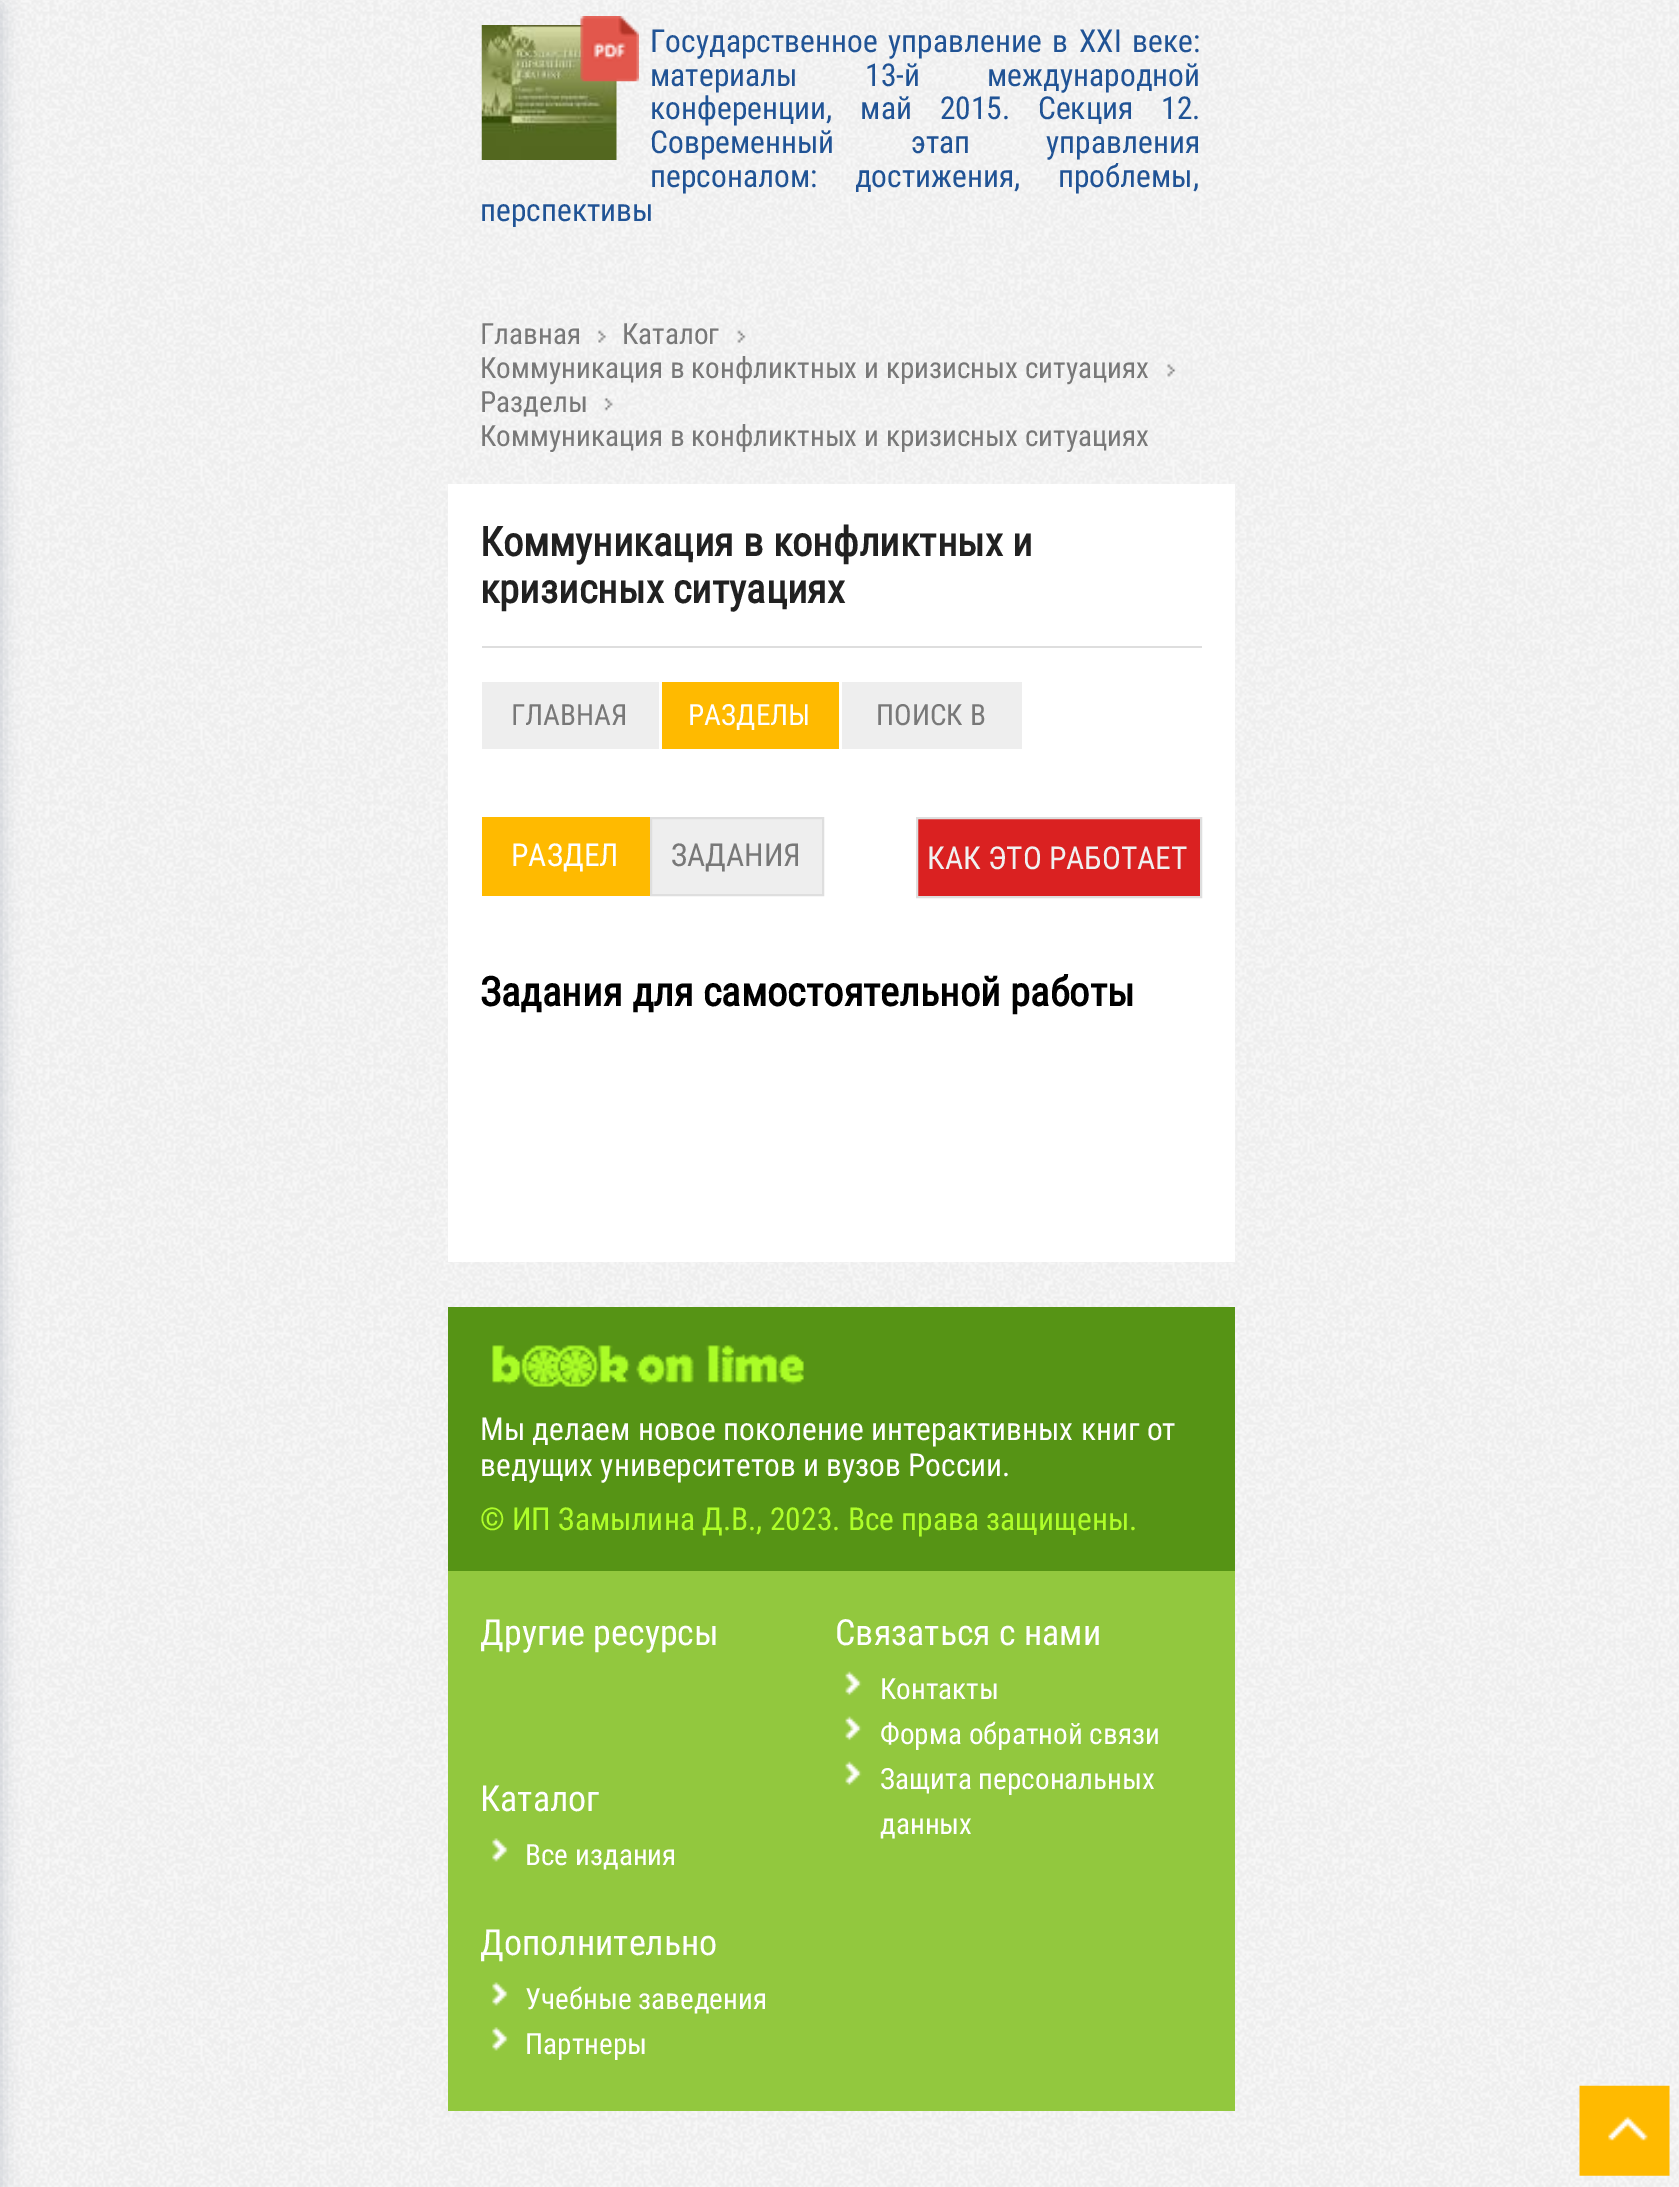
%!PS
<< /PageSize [1679 2187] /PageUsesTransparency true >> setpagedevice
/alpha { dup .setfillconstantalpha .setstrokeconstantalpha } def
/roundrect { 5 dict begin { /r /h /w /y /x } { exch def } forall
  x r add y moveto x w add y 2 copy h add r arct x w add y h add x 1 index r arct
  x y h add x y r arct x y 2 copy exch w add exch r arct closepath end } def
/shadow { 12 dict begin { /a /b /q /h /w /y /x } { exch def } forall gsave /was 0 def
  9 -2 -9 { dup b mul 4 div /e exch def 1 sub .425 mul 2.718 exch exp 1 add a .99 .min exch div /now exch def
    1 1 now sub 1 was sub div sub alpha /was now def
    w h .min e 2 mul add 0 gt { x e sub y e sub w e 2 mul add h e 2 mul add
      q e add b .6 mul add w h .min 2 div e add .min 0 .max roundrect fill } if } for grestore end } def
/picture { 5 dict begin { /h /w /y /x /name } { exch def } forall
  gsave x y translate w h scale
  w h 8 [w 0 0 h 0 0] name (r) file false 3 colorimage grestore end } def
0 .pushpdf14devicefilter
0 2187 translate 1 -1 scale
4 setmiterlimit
1 setgray
0 0 1679 2187 rectfill
(img1.rgb) 0 0 1679 2187 picture
0.329 0.373 0.475 setrgbcolor
-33 7 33 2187 0 11 0.3 shadow
(img3.rgb) 481 25 136 135 picture
(img2.rgb) 580 16 59 66 picture
/RobotoCondensed-Regular [31.5 0 0 -31.5 0 0] selectfont
0.125 0.325 0.584 setrgbcolor
650 52 moveto 3.5 0 32 (Государственное управление в XXI веке:) widthshow
650 86 moveto 60 0 32 (материалы 13-й международной) widthshow
650 119 moveto 20.5 0 32 (конференции, май 2015. Секция 12.) widthshow
650 153 moveto 69 0 32 (Современный этап управления) widthshow
650 187 moveto 30 0 32 (персоналом: достижения, проблемы,) widthshow
gsave
482 16 720 211 rectclip
480 221 moveto (перспективы) show
grestore
/RobotoCondensed-Regular [29.25 0 0 -29.25 0 0] selectfont
0.471 setgray
480 344 moveto (Главная) show
(img4.rgb) 598 330 8 13 picture
622 344 moveto (Каталог) show
(img5.rgb) 737 330 9 13 picture
480 378 moveto (Коммуникация в конфликтных и кризисных ситуациях) show
(img6.rgb) 1167 364 9 13 picture
480 412 moveto (Разделы) show
(img7.rgb) 604 398 9 13 picture
gsave
448 317 787 135 rectclip
480 446 moveto (Коммуникация в конфликтных и кризисных ситуациях) show
grestore
1 setgray
448 484 787 778 rectfill
0.871 setgray
482 646 720 2 rectfill
/RobotoCondensed-Bold [40.5 0 0 -40.5 0 0] selectfont
0.129 setgray
480 556 moveto (Коммуникация в конфликтных и) show
480 603 moveto (кризисных ситуациях) show
0.933 setgray
482 682 177 67 rectfill
/RobotoCondensed-Regular [29.25 0 0 -29.25 0 0] selectfont
0.471 setgray
511 725 moveto (ГЛАВНАЯ) show
1 0.729 0 setrgbcolor
662 682 177 67 rectfill
1 setgray
688 725 moveto (РАЗДЕЛЫ) show
0.933 setgray
842 682 180 67 rectfill
0.471 setgray
876 725 moveto (ПОИСК В) show
1 0.729 0 setrgbcolor
482 817 168 79 rectfill
/RobotoCondensed-Regular [31.5 0 0 -31.5 0 0] selectfont
1 setgray
511 866 moveto (РАЗДЕЛ) show
0.933 setgray
newpath 651 818 moveto 823 818 lineto 823 895 lineto 651 895 lineto closepath gsave fill grestore
0.871 setgray
2 setlinewidth
stroke
0.471 setgray
671 866 moveto (ЗАДАНИЯ) show
0.855 0.129 0.129 setrgbcolor
newpath 917 818 moveto 1201 818 lineto 1201 897 lineto 917 897 lineto closepath gsave fill grestore
0.871 setgray
stroke
0.941 setgray
927 869 moveto (КАК ЭТО РАБОТАЕТ) show
/RobotoCondensed-Bold [40.5 0 0 -40.5 0 0] selectfont
0 setgray
480 1006 moveto (Задания для самостоятельной работы) show
0.337 0.58 0.082 setrgbcolor
448 1307 787 264 rectfill
(img8.rgb) 492 1345 312 42 picture
/RobotoCondensed-Regular [31.5 0 0 -31.5 0 0] selectfont
1 setgray
480 1440 moveto (Мы делаем новое поколение интерактивных книг от) show
480 1476 moveto (ведущих университетов и вузов России.) show
0.682 0.996 0.161 setrgbcolor
480 1530 moveto (© ИП Замылина Д.В., 2023. Все права защищены.) show
0.573 0.784 0.243 setrgbcolor
448 1571 787 540 rectfill
/RobotoCondensed-Regular [36 0 0 -36 0 0] selectfont
1 setgray
480 1645 moveto (Другие ресурсы) show
480 1811 moveto (Каталог) show
(img9.rgb) 492 1838 17 24 picture
/RobotoCondensed-Regular [29.25 0 0 -29.25 0 0] selectfont
525 1865 moveto (Все издания) show
/RobotoCondensed-Regular [36 0 0 -36 0 0] selectfont
480 1955 moveto (Дополнительно) show
(img10.rgb) 492 1982 17 24 picture
/RobotoCondensed-Regular [29.25 0 0 -29.25 0 0] selectfont
525 2009 moveto (Учебные заведения) show
(img9.rgb) 492 2027 17 24 picture
525 2054 moveto (Партнеры) show
/RobotoCondensed-Regular [36 0 0 -36 0 0] selectfont
835 1645 moveto (Связаться с нами) show
(img11.rgb) 845 1671 17 25 picture
/RobotoCondensed-Regular [29.25 0 0 -29.25 0 0] selectfont
880 1699 moveto (Контакты) show
(img11.rgb) 845 1716 17 25 picture
880 1744 moveto (Форма обратной связи) show
(img11.rgb) 845 1761 17 25 picture
880 1789 moveto (Защита персональных) show
880 1834 moveto (данных) show
(img12.rgb) 1579 2085 91 91 picture
.poppdf14devicefilter showpage
